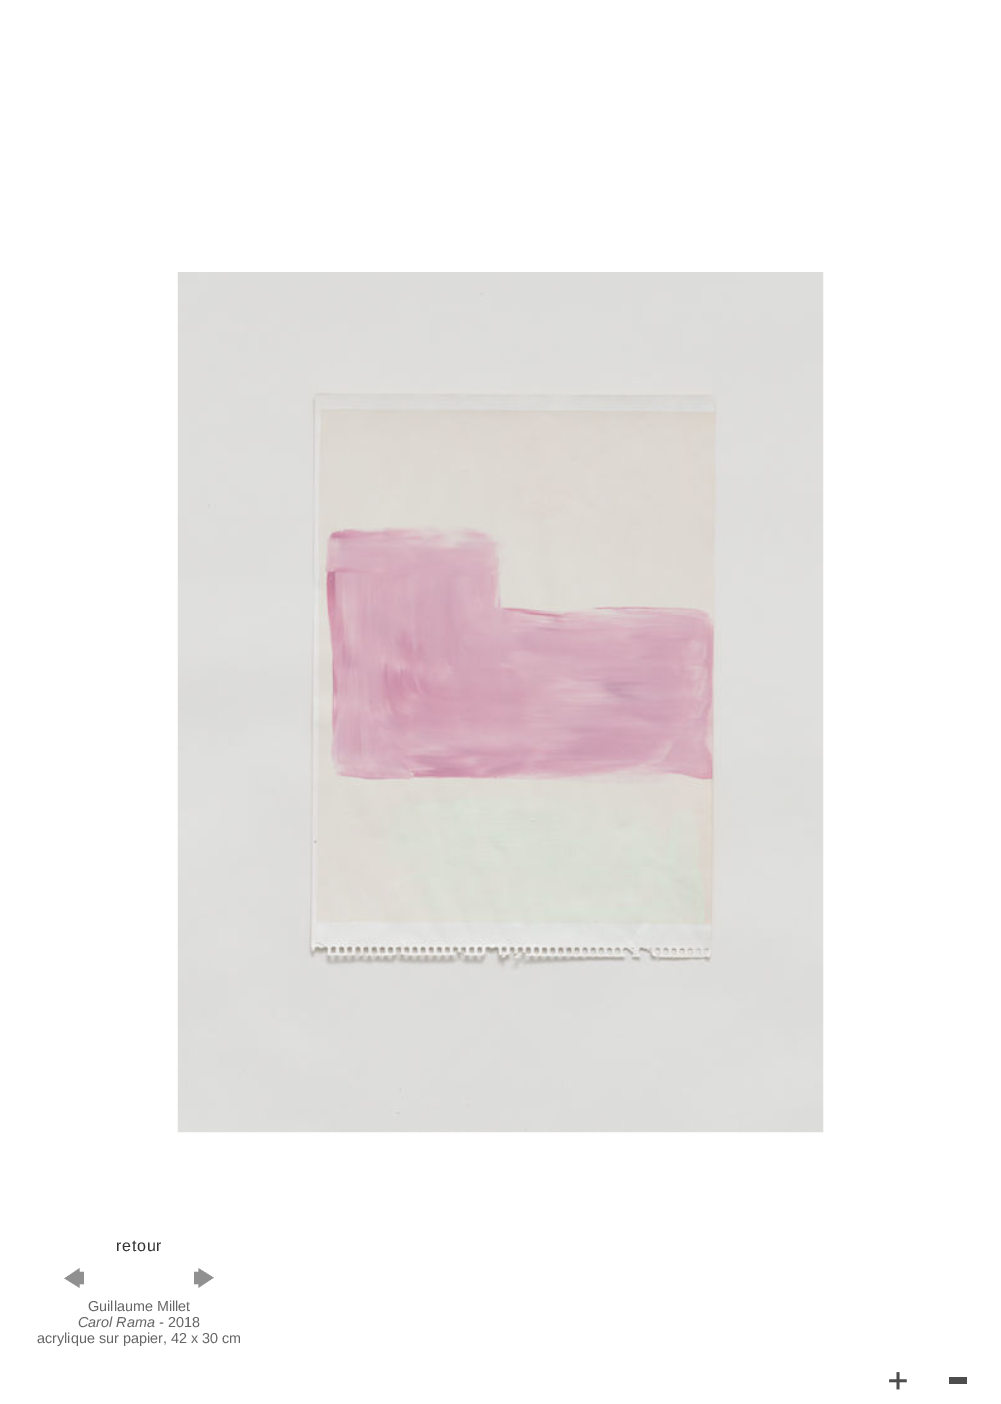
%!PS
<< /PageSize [1001 1404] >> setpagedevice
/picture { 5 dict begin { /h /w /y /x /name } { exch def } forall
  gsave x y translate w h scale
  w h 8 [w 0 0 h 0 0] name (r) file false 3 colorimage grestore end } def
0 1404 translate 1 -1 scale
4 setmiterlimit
1 setgray
0 0 1001 1404 rectfill
/LiberationSans-Regular [16 0 0 -16 0 0] selectfont
0.2 setgray
116 1251 moveto 0.75 0 (retour) ashow
(img1.rgb) 64 1268 20 20 picture
(img2.rgb) 194 1268 20 20 picture
/LiberationSans-Regular [14.4 0 0 -14.4 0 0] selectfont
0.4 setgray
88 1311 moveto (Guillaume Millet) show
/LiberationSans-Italic [14.4 0 0 -14.4 0 0] selectfont
78 1327 moveto (Carol Rama) show
/LiberationSans-Regular [14.4 0 0 -14.4 0 0] selectfont
159 1327 moveto (- 2018) show
37 1343 moveto (acrylique sur papier, 42 x 30 cm) show
(img3.rgb) 177 272 647 861 picture
(img4.rgb) 889 1372 18 18 picture
0.302 setgray
949 1377 18 7 rectfill
showpage
